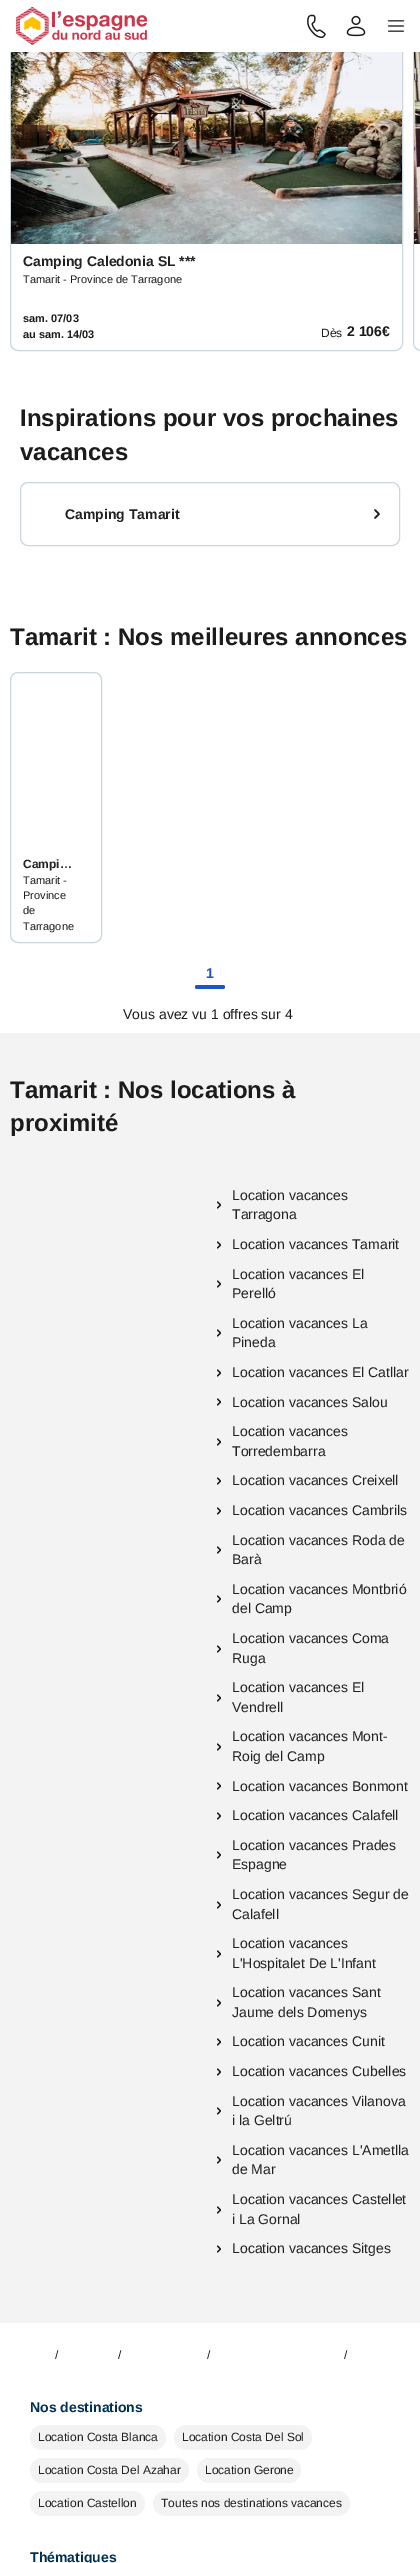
%!PS
<< /PageSize [420 2563] >> setpagedevice
/roundrect { 5 dict begin { /r /h /w /y /x } { exch def } forall
  x r add y moveto x w add y 2 copy h add r arct x w add y h add x 1 index r arct
  x y h add x y r arct x y 2 copy exch w add exch r arct closepath end } def
/picture { 5 dict begin { /h /w /y /x /name } { exch def } forall
  gsave x y translate w h scale
  w h 8 [w 0 0 h 0 0] name (r) file false 3 colorimage grestore end } def
0 2563 translate 1 -1 scale
4 setmiterlimit
1 setgray
0 0 420 2563 rectfill
0.796 0.843 0.859 setrgbcolor
10.5 13.5 392 337 7.5 roundrect stroke
413.5 13.5 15 337 7.5 roundrect stroke
1 setgray
10 13 410 39 rectfill
(img1.rgb) 16 7 131 38 picture
(img2.rgb) 307 14 19 25 picture
(img3.rgb) 346 15 20 22 picture
(img4.rgb) 388 20 16 12 picture
(img5.rgb) 11 52 391 192 picture
/LiberationSans-Bold [14 0 0 -14 0 0] selectfont
0.129 0.133 0.133 setrgbcolor
23 266 moveto (Camping Caledonia SL ***) show
/LiberationSans-Regular [11 0 0 -11 0 0] selectfont
0.11 0.11 0.118 setrgbcolor
23 283 moveto (Tamarit - Province de Tarragone) show
/LiberationSans-Bold [11 0 0 -11 0 0] selectfont
23 322 moveto (sam. 07/03) show
23 338 moveto (au sam. 14/03) show
/LiberationSans-Regular [12 0 0 -12 0 0] selectfont
321 337 moveto (Dès) show
/LiberationSans-Bold [14 0 0 -14 0 0] selectfont
347 336 moveto (2 106€) show
(img6.rgb) 414 52 6 192 picture
/LiberationSans-Bold [24 0 0 -24 0 0] selectfont
20 426 moveto (Inspirations pour vos prochaines) show
20 460 moveto (vacances) show
0.796 0.843 0.859 setrgbcolor
20.5 482.5 379 63 7.5 roundrect stroke
/LiberationSans-Bold [14 0 0 -14 0 0] selectfont
0.129 0.133 0.133 setrgbcolor
65 519 moveto (Camping Tamarit) show
0.11 0.11 0.118 setrgbcolor
1.5 setlinewidth
1 setlinecap
1 setlinejoin
newpath 375 510 moveto 379 514 lineto 375 518 lineto stroke
/LiberationSans-Bold [24 0 0 -24 0 0] selectfont
10 645 moveto (Tamarit : Nos meilleures annonces) show
0.796 0.843 0.859 setrgbcolor
1 setlinewidth
0 setlinecap
0 setlinejoin
10.5 672.5 91 270 7.5 roundrect stroke
/LiberationSans-Bold [12 0 0 -12 0 0] selectfont
0.129 0.133 0.133 setrgbcolor
23 868 moveto (Campi…) show
/LiberationSans-Regular [11 0 0 -11 0 0] selectfont
0.11 0.11 0.118 setrgbcolor
23 884 moveto (Tamarit -) show
23 899 moveto (Province) show
23 914 moveto (de) show
23 930 moveto (Tarragone) show
/LiberationSans-Bold [14 0 0 -14 0 0] selectfont
0.114 0.337 0.773 setrgbcolor
206 978 moveto (1) show
195 985 30 4 2 roundrect fill
/LiberationSans-Regular [14 0 0 -14 0 0] selectfont
0.11 0.11 0.118 setrgbcolor
123 1019 moveto (Vous avez vu 1 offres sur 4) show
0.957 0.953 0.953 setrgbcolor
0 1033 420 1290 rectfill
/LiberationSans-Bold [24 0 0 -24 0 0] selectfont
0.11 0.11 0.118 setrgbcolor
10 1098 moveto (Tamarit : Nos locations à) show
10 1131 moveto (proximité) show
/LiberationSans-Regular [14 0 0 -14 0 0] selectfont
0.129 0.133 0.133 setrgbcolor
232 1200 moveto (Location vacances) show
0.11 0.11 0.118 setrgbcolor
1.1 setlinewidth
1 setlinecap
1 setlinejoin
newpath 217.5 1202 moveto 220.5 1205 lineto 217.5 1208 lineto stroke
0.129 0.133 0.133 setrgbcolor
232 1219 moveto (Tarragona) show
0.11 0.11 0.118 setrgbcolor
newpath 217.5 1242 moveto 220.5 1245 lineto 217.5 1248 lineto stroke
0.129 0.133 0.133 setrgbcolor
232 1249 moveto (Location vacances Tamarit) show
232 1279 moveto (Location vacances El) show
0.11 0.11 0.118 setrgbcolor
newpath 217.5 1281 moveto 220.5 1284 lineto 217.5 1287 lineto stroke
0.129 0.133 0.133 setrgbcolor
232 1298 moveto (Perelló) show
232 1328 moveto (Location vacances La) show
0.11 0.11 0.118 setrgbcolor
newpath 217.5 1330 moveto 220.5 1333 lineto 217.5 1336 lineto stroke
0.129 0.133 0.133 setrgbcolor
232 1347 moveto (Pineda) show
0.11 0.11 0.118 setrgbcolor
newpath 217.5 1370 moveto 220.5 1373 lineto 217.5 1376 lineto stroke
0.129 0.133 0.133 setrgbcolor
232 1377 moveto (Location vacances El Catllar) show
0.11 0.11 0.118 setrgbcolor
newpath 217.5 1399 moveto 220.5 1402 lineto 217.5 1405 lineto stroke
0.129 0.133 0.133 setrgbcolor
232 1407 moveto (Location vacances Salou) show
232 1436 moveto (Location vacances) show
0.11 0.11 0.118 setrgbcolor
newpath 217.5 1439 moveto 220.5 1442 lineto 217.5 1445 lineto stroke
0.129 0.133 0.133 setrgbcolor
232 1456 moveto (Torredembarra) show
0.11 0.11 0.118 setrgbcolor
newpath 217.5 1478 moveto 220.5 1481 lineto 217.5 1484 lineto stroke
0.129 0.133 0.133 setrgbcolor
232 1485 moveto (Location vacances Creixell) show
0.11 0.11 0.118 setrgbcolor
newpath 217.5 1508 moveto 220.5 1511 lineto 217.5 1514 lineto stroke
0.129 0.133 0.133 setrgbcolor
232 1515 moveto (Location vacances Cambrils) show
232 1545 moveto (Location vacances Roda de) show
0.11 0.11 0.118 setrgbcolor
newpath 217.5 1547 moveto 220.5 1550 lineto 217.5 1553 lineto stroke
0.129 0.133 0.133 setrgbcolor
232 1564 moveto (Barà) show
232 1594 moveto (Location vacances Montbrió) show
0.11 0.11 0.118 setrgbcolor
newpath 217.5 1596 moveto 220.5 1599 lineto 217.5 1602 lineto stroke
0.129 0.133 0.133 setrgbcolor
232 1613 moveto (del Camp) show
232 1643 moveto (Location vacances Coma) show
0.11 0.11 0.118 setrgbcolor
newpath 217.5 1646 moveto 220.5 1649 lineto 217.5 1652 lineto stroke
0.129 0.133 0.133 setrgbcolor
232 1663 moveto (Ruga) show
232 1692 moveto (Location vacances El) show
0.11 0.11 0.118 setrgbcolor
newpath 217.5 1695 moveto 220.5 1698 lineto 217.5 1701 lineto stroke
0.129 0.133 0.133 setrgbcolor
232 1712 moveto (Vendrell) show
232 1741 moveto (Location vacances Mont-) show
0.11 0.11 0.118 setrgbcolor
newpath 217.5 1744 moveto 220.5 1747 lineto 217.5 1750 lineto stroke
0.129 0.133 0.133 setrgbcolor
232 1761 moveto (Roig del Camp) show
0.11 0.11 0.118 setrgbcolor
newpath 217.5 1783 moveto 220.5 1786 lineto 217.5 1789 lineto stroke
0.129 0.133 0.133 setrgbcolor
232 1791 moveto (Location vacances Bonmont) show
0.11 0.11 0.118 setrgbcolor
newpath 217.5 1813 moveto 220.5 1816 lineto 217.5 1819 lineto stroke
0.129 0.133 0.133 setrgbcolor
232 1820 moveto (Location vacances Calafell) show
232 1850 moveto (Location vacances Prades) show
0.11 0.11 0.118 setrgbcolor
newpath 217.5 1852 moveto 220.5 1855 lineto 217.5 1858 lineto stroke
0.129 0.133 0.133 setrgbcolor
232 1869 moveto (Espagne) show
232 1899 moveto (Location vacances Segur de) show
0.11 0.11 0.118 setrgbcolor
newpath 217.5 1902 moveto 220.5 1905 lineto 217.5 1908 lineto stroke
0.129 0.133 0.133 setrgbcolor
232 1919 moveto (Calafell) show
232 1948 moveto (Location vacances) show
0.11 0.11 0.118 setrgbcolor
newpath 217.5 1951 moveto 220.5 1954 lineto 217.5 1957 lineto stroke
0.129 0.133 0.133 setrgbcolor
232 1968 moveto (L'Hospitalet De L'Infant) show
232 1997 moveto (Location vacances Sant) show
0.11 0.11 0.118 setrgbcolor
newpath 217.5 2000 moveto 220.5 2003 lineto 217.5 2006 lineto stroke
0.129 0.133 0.133 setrgbcolor
232 2017 moveto (Jaume dels Domenys) show
0.11 0.11 0.118 setrgbcolor
newpath 217.5 2039 moveto 220.5 2042 lineto 217.5 2045 lineto stroke
0.129 0.133 0.133 setrgbcolor
232 2046 moveto (Location vacances Cunit) show
0.11 0.11 0.118 setrgbcolor
newpath 217.5 2069 moveto 220.5 2072 lineto 217.5 2075 lineto stroke
0.129 0.133 0.133 setrgbcolor
232 2076 moveto (Location vacances Cubelles) show
232 2106 moveto (Location vacances Vilanova) show
0.11 0.11 0.118 setrgbcolor
newpath 217.5 2108 moveto 220.5 2111 lineto 217.5 2114 lineto stroke
0.129 0.133 0.133 setrgbcolor
232 2125 moveto (i la Geltrú) show
232 2155 moveto (Location vacances L'Ametlla) show
0.11 0.11 0.118 setrgbcolor
newpath 217.5 2157 moveto 220.5 2160 lineto 217.5 2163 lineto stroke
0.129 0.133 0.133 setrgbcolor
232 2174 moveto (de Mar) show
232 2204 moveto (Location vacances Castellet) show
0.11 0.11 0.118 setrgbcolor
newpath 217.5 2207 moveto 220.5 2210 lineto 217.5 2213 lineto stroke
0.129 0.133 0.133 setrgbcolor
232 2224 moveto (i La Gornal) show
0.11 0.11 0.118 setrgbcolor
newpath 217.5 2246 moveto 220.5 2249 lineto 217.5 2252 lineto stroke
0.129 0.133 0.133 setrgbcolor
232 2253 moveto (Location vacances Sitges) show
/LiberationSans-Regular [12 0 0 -12 0 0] selectfont
0.11 0.11 0.118 setrgbcolor
55 2359 moveto (/) show
118 2359 moveto (/) show
207 2359 moveto (/) show
344 2359 moveto (/) show
/LiberationSans-Bold [14 0 0 -14 0 0] selectfont
0 0.188 0.322 setrgbcolor
30 2412 moveto (Nos destinations) show
0.957 0.953 0.953 setrgbcolor
30 2425 136 25 12.5 roundrect fill
/LiberationSans-Regular [12 0 0 -12 0 0] selectfont
0.129 0.133 0.133 setrgbcolor
38 2441 moveto (Location Costa Blanca) show
0.957 0.953 0.953 setrgbcolor
174 2425 138 25 12.5 roundrect fill
0.129 0.133 0.133 setrgbcolor
182 2441 moveto (Location Costa Del Sol) show
0.957 0.953 0.953 setrgbcolor
30 2458 159 25 12.5 roundrect fill
0.129 0.133 0.133 setrgbcolor
38 2474 moveto (Location Costa Del Azahar) show
0.957 0.953 0.953 setrgbcolor
197 2458 104 25 12.5 roundrect fill
0.129 0.133 0.133 setrgbcolor
205 2474 moveto (Location Gerone) show
0.957 0.953 0.953 setrgbcolor
30 2491 115 25 12.5 roundrect fill
0.129 0.133 0.133 setrgbcolor
38 2507 moveto (Location Castellon) show
0.957 0.953 0.953 setrgbcolor
153 2491 197 25 12.5 roundrect fill
0.129 0.133 0.133 setrgbcolor
161 2507 moveto (Toutes nos destinations vacances) show
/LiberationSans-Bold [14 0 0 -14 0 0] selectfont
0 0.188 0.322 setrgbcolor
30 2562 moveto (Thématiques) show
showpage
